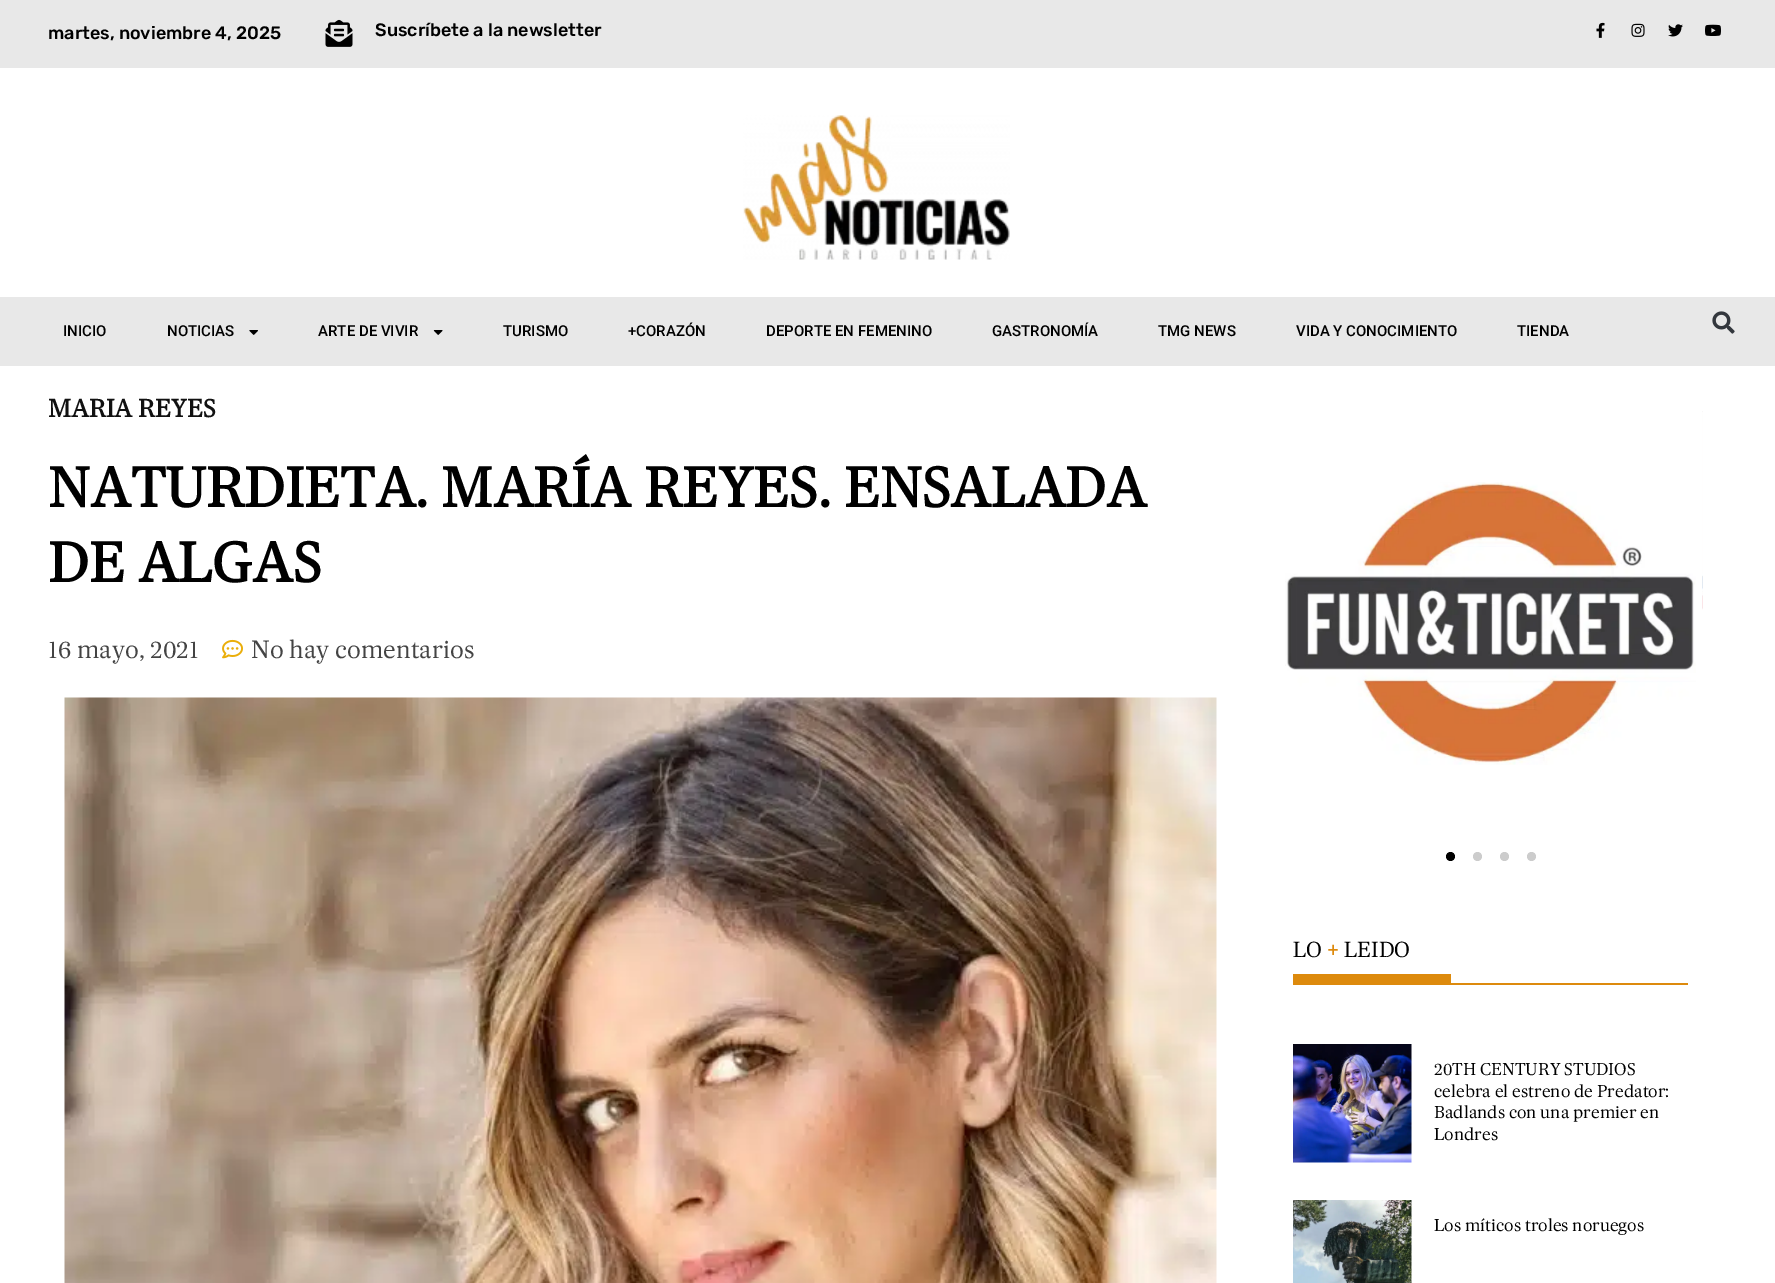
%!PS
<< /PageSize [1775 1283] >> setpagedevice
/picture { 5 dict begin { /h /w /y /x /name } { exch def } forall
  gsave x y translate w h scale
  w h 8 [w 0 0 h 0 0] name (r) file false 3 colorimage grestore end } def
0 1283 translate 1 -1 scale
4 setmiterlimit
1 setgray
0 0 1775 1283 rectfill
0.91 setgray
0 0 1775 68 rectfill
/Rubik-Medium [18 0 0 -18 0 0] selectfont
0 setgray
48 39 moveto (martes, noviembre 4, 2025) show
(img1.rgb) 325 19 28 28 picture
375 36 moveto (Suscríbete a la newsletter) show
(img2.rgb) 1596 22 9 16 picture
(img3.rgb) 1631 23 14 14 picture
(img4.rgb) 1668 24 15 13 picture
(img5.rgb) 1705 24 16 12 picture
(img6.rgb) 743 115 267 145 picture
0.91 setgray
0 297 1775 69 rectfill
/Roboto-Medium [15 0 0 -15 0 0] selectfont
0 setgray
63 336 moveto (INICIO) show
167 336 moveto (NOTICIAS) show
(img7.rgb) 249 330 9 5 picture
318 336 moveto (ARTE DE VIVIR) show
(img8.rgb) 433 330 10 5 picture
503 336 moveto (TURISMO) show
628 336 moveto (+CORAZÓN) show
766 336 moveto (DEPORTE EN FEMENINO) show
992 336 moveto (GASTRONOMÍA) show
1158 336 moveto (TMG NEWS) show
1296 336 moveto (VIDA Y CONOCIMIENTO) show
1517 336 moveto (TIENDA) show
(img9.rgb) 1712 311 23 23 picture
/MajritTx-Bold [24 0 0 -24 0 0] selectfont
0.067 setgray
48 417 moveto (MARIA REYES) show
/MajritTx-Bold [54 0 0 -54 0 0] selectfont
0 setgray
48 507 moveto (NATURDIETA. MARÍA REYES. ENSALADA) show
48 582 moveto (DE ALGAS) show
/MajritTx-Regular [24 0 0 -24 0 0] selectfont
0.267 setgray
48 658 moveto (16 mayo, 2021) show
(img10.rgb) 222 639 21 20 picture
251 658 moveto (No hay comentarios) show
(img11.rgb) 64 697 1153 586 picture
(img12.rgb) 1285 482 411 283 picture
(img13.rgb) 1702 411 1 199 picture
0 setgray
newpath 1450.5 856.5 4.5 0 360 arc closepath fill
0.8 setgray
newpath 1477.5 856.5 4.5 0 360 arc closepath fill
newpath 1504.5 856.5 4.5 0 360 arc closepath fill
newpath 1531.5 856.5 4.5 0 360 arc closepath fill
0.867 0.541 0.051 setrgbcolor
1293 974 158 9 rectfill
/MajritTx-Regular [21 0 0 -21 0 0] selectfont
0 setgray
1293 957 moveto (LO) show
/MajritTx-Bold [21 0 0 -21 0 0] selectfont
0.867 0.541 0.051 setrgbcolor
1327 957 moveto (+) show
/MajritTx-Regular [21 0 0 -21 0 0] selectfont
0 setgray
1344 957 moveto (LEIDO) show
0.867 0.541 0.051 setrgbcolor
1293 983 395 2 rectfill
(img14.rgb) 1293 1044 119 119 picture
/MajritTx-Regular [16.5 0 0 -16.5 0 0] selectfont
0 setgray
1434 1075 moveto (20TH CENTURY STUDIOS) show
1434 1097 moveto (celebra el estreno de Predator:) show
1434 1118 moveto (Badlands con una premier en) show
1434 1140 moveto (Londres) show
(img15.rgb) 1293 1200 119 83 picture
1434 1231 moveto (Los míticos troles noruegos) show
showpage
